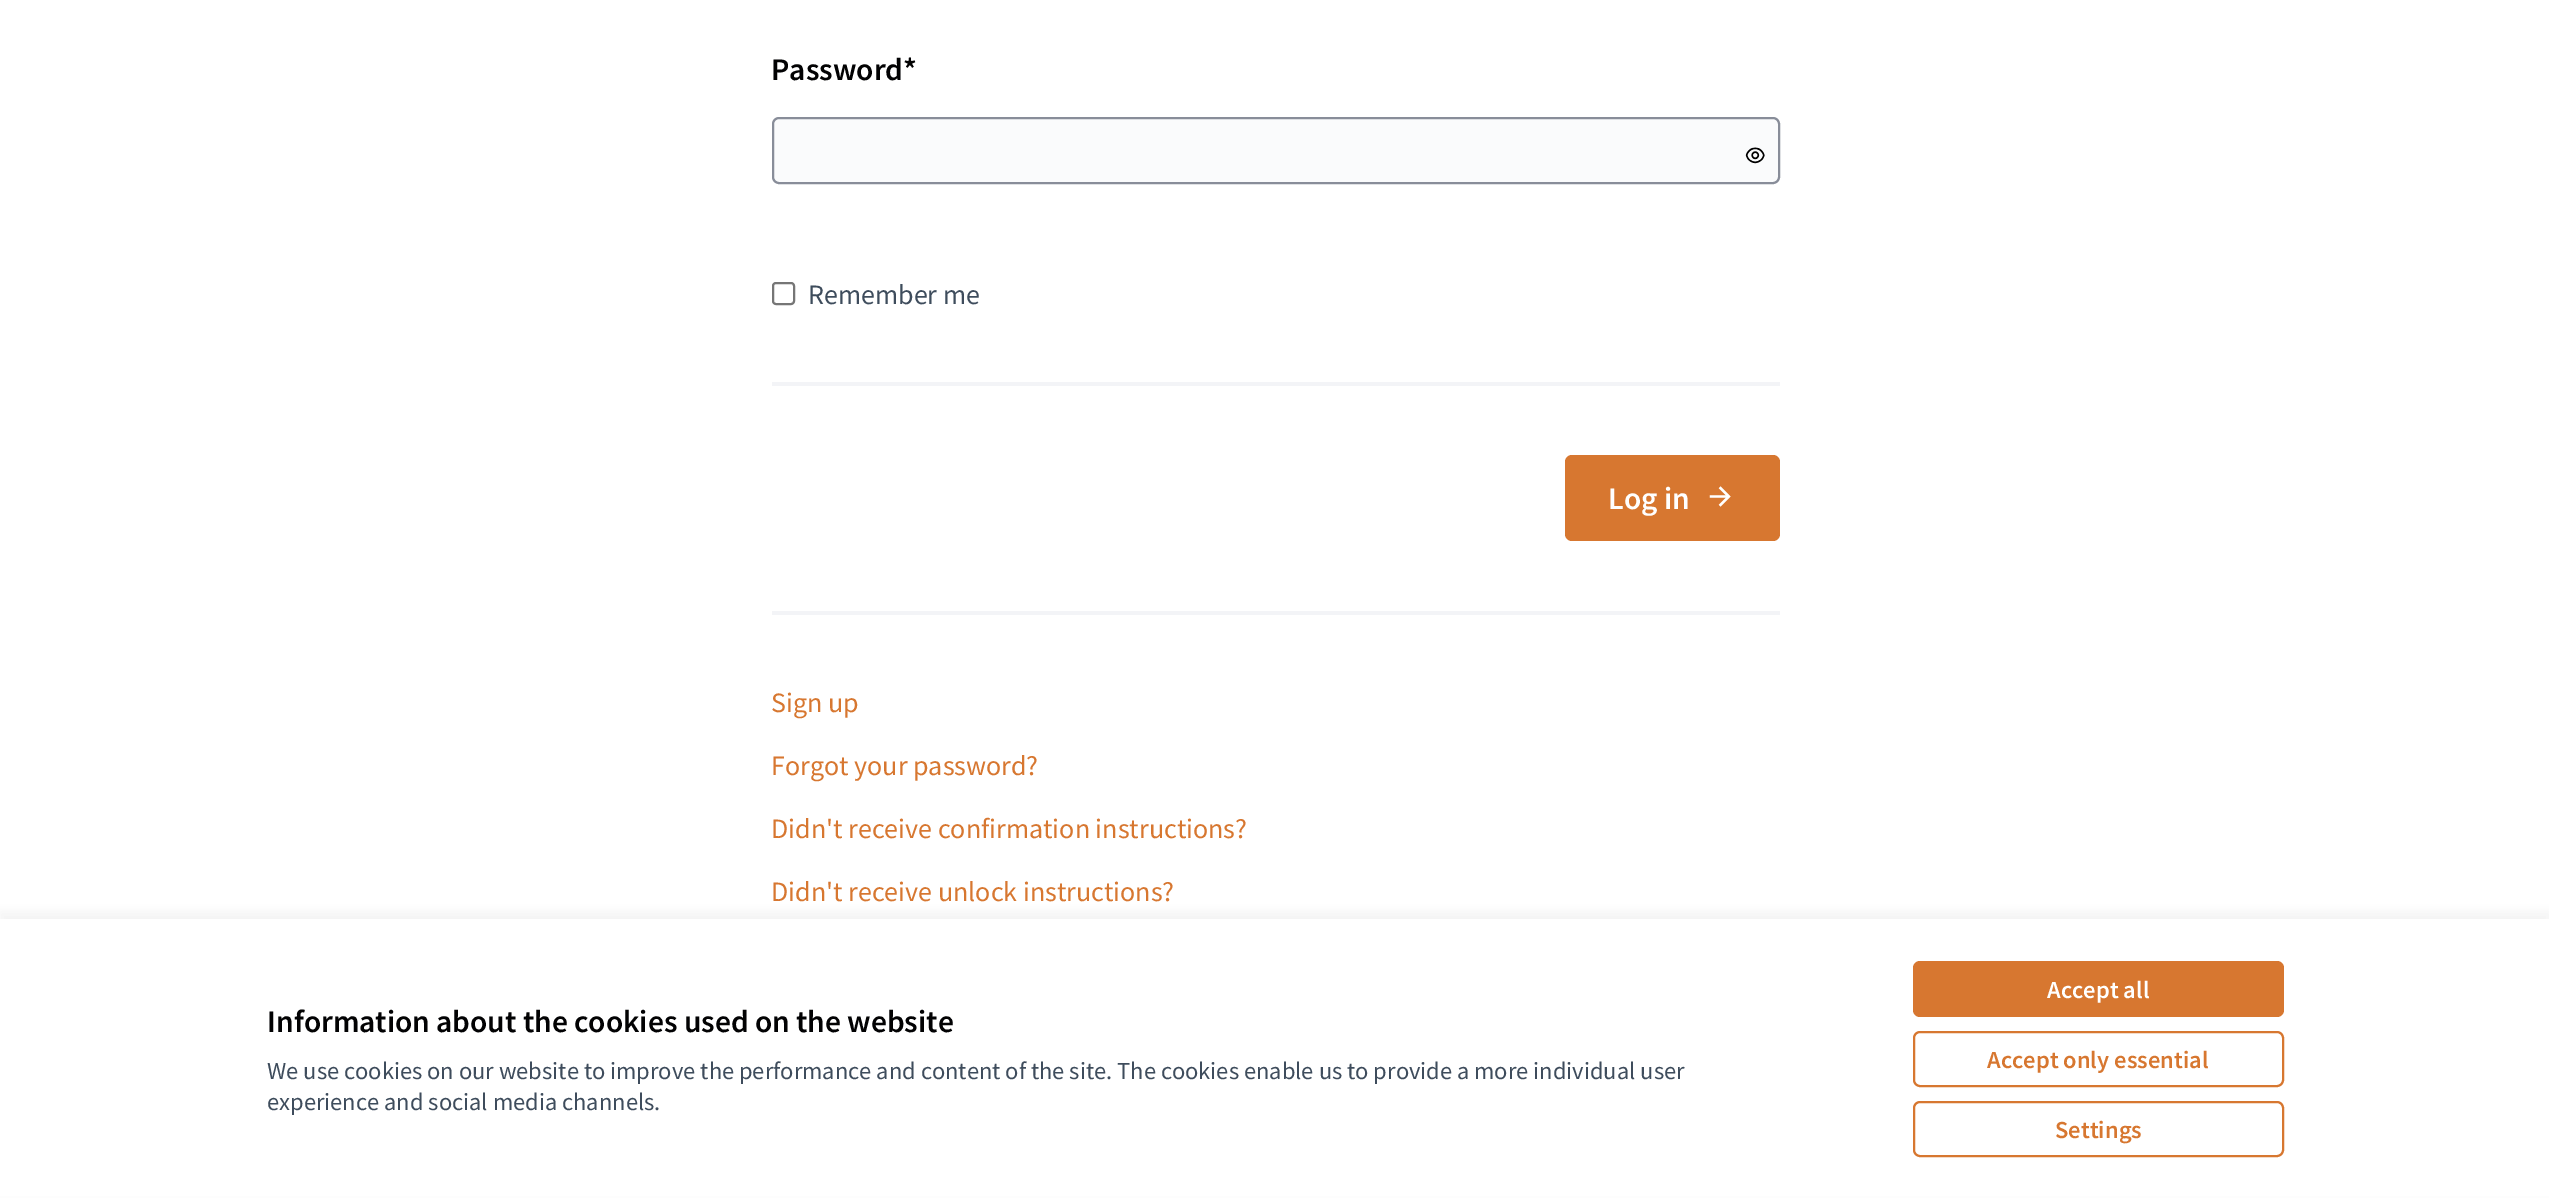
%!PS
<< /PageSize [2549 1198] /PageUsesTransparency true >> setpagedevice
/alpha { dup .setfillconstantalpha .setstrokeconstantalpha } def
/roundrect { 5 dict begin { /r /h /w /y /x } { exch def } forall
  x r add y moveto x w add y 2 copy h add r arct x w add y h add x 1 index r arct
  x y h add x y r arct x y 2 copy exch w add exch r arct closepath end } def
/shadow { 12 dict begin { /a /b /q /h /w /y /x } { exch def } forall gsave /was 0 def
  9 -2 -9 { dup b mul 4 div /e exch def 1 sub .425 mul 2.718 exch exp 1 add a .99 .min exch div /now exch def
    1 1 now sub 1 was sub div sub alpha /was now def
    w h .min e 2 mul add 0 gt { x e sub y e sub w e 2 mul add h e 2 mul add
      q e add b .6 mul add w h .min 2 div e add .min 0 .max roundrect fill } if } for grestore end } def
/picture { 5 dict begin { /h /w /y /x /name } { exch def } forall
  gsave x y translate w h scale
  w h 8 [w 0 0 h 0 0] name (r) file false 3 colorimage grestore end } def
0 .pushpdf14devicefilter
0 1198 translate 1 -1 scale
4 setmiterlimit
1 setgray
0 0 2549 1198 rectfill
/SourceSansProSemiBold-SemiBold [31.5 0 0 -31.5 0 0] selectfont
0.008 0.008 0.012 setrgbcolor
771 80 moveto (Password*) show
0.98 0.984 0.988 setrgbcolor
773 118 1006 65 6 roundrect gsave fill grestore
0.533 0.553 0.6 setrgbcolor
2 setlinewidth
stroke
(img1.rgb) 1745 147 20 17 picture
0.463 setgray
773 283 21 21 3 roundrect stroke
/SourceSansPro-Regular [28 0 0 -28 0 0] selectfont
0.243 0.298 0.361 setrgbcolor
808 304 moveto (Remember me) show
0.953 0.957 0.969 setrgbcolor
772 382 1008 4 rectfill
0.843 0.467 0.188 setrgbcolor
1565 455 215 86 7 roundrect fill
/SourceSansProSemiBold-SemiBold [31.5 0 0 -31.5 0 0] selectfont
1 setgray
1608 509 moveto (Log in) show
(img2.rgb) 1709 486 22 21 picture
0.953 0.957 0.969 setrgbcolor
772 611 1008 4 rectfill
/SourceSansPro-Regular [28 0 0 -28 0 0] selectfont
0.843 0.467 0.188 setrgbcolor
771 712 moveto (Sign up) show
771 775 moveto (Forgot your password?) show
771 838 moveto (Didn't receive confirmation instructions?) show
771 901 moveto (Didn't receive unlock instructions?) show
0.827 setgray
0 912 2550 280 0 5 0.25 shadow
1 setgray
0 919 2549 277 rectfill
/SourceSansProSemiBold-SemiBold [31.5 0 0 -31.5 0 0] selectfont
0.008 0.008 0.012 setrgbcolor
267 1032 moveto (Information about the cookies used on the website) show
/SourceSansPro-Regular [24.5 0 0 -24.5 0 0] selectfont
0.243 0.298 0.361 setrgbcolor
267 1079 moveto (We use cookies on our website to improve the performance and content of the site. The cookies enable us to provide a more individual user) show
267 1110 moveto (experience and social media channels.) show
0.843 0.467 0.188 setrgbcolor
1913 961 371 56 7 roundrect fill
/SourceSansProSemiBold-SemiBold [24.5 0 0 -24.5 0 0] selectfont
1 setgray
2047 998 moveto (Accept all) show
0.843 0.467 0.188 setrgbcolor
1914 1032 369 54 6 roundrect stroke
1987 1068 moveto (Accept only essential) show
1914 1102 369 54 6 roundrect stroke
2055 1138 moveto (Settings) show
.poppdf14devicefilter showpage
